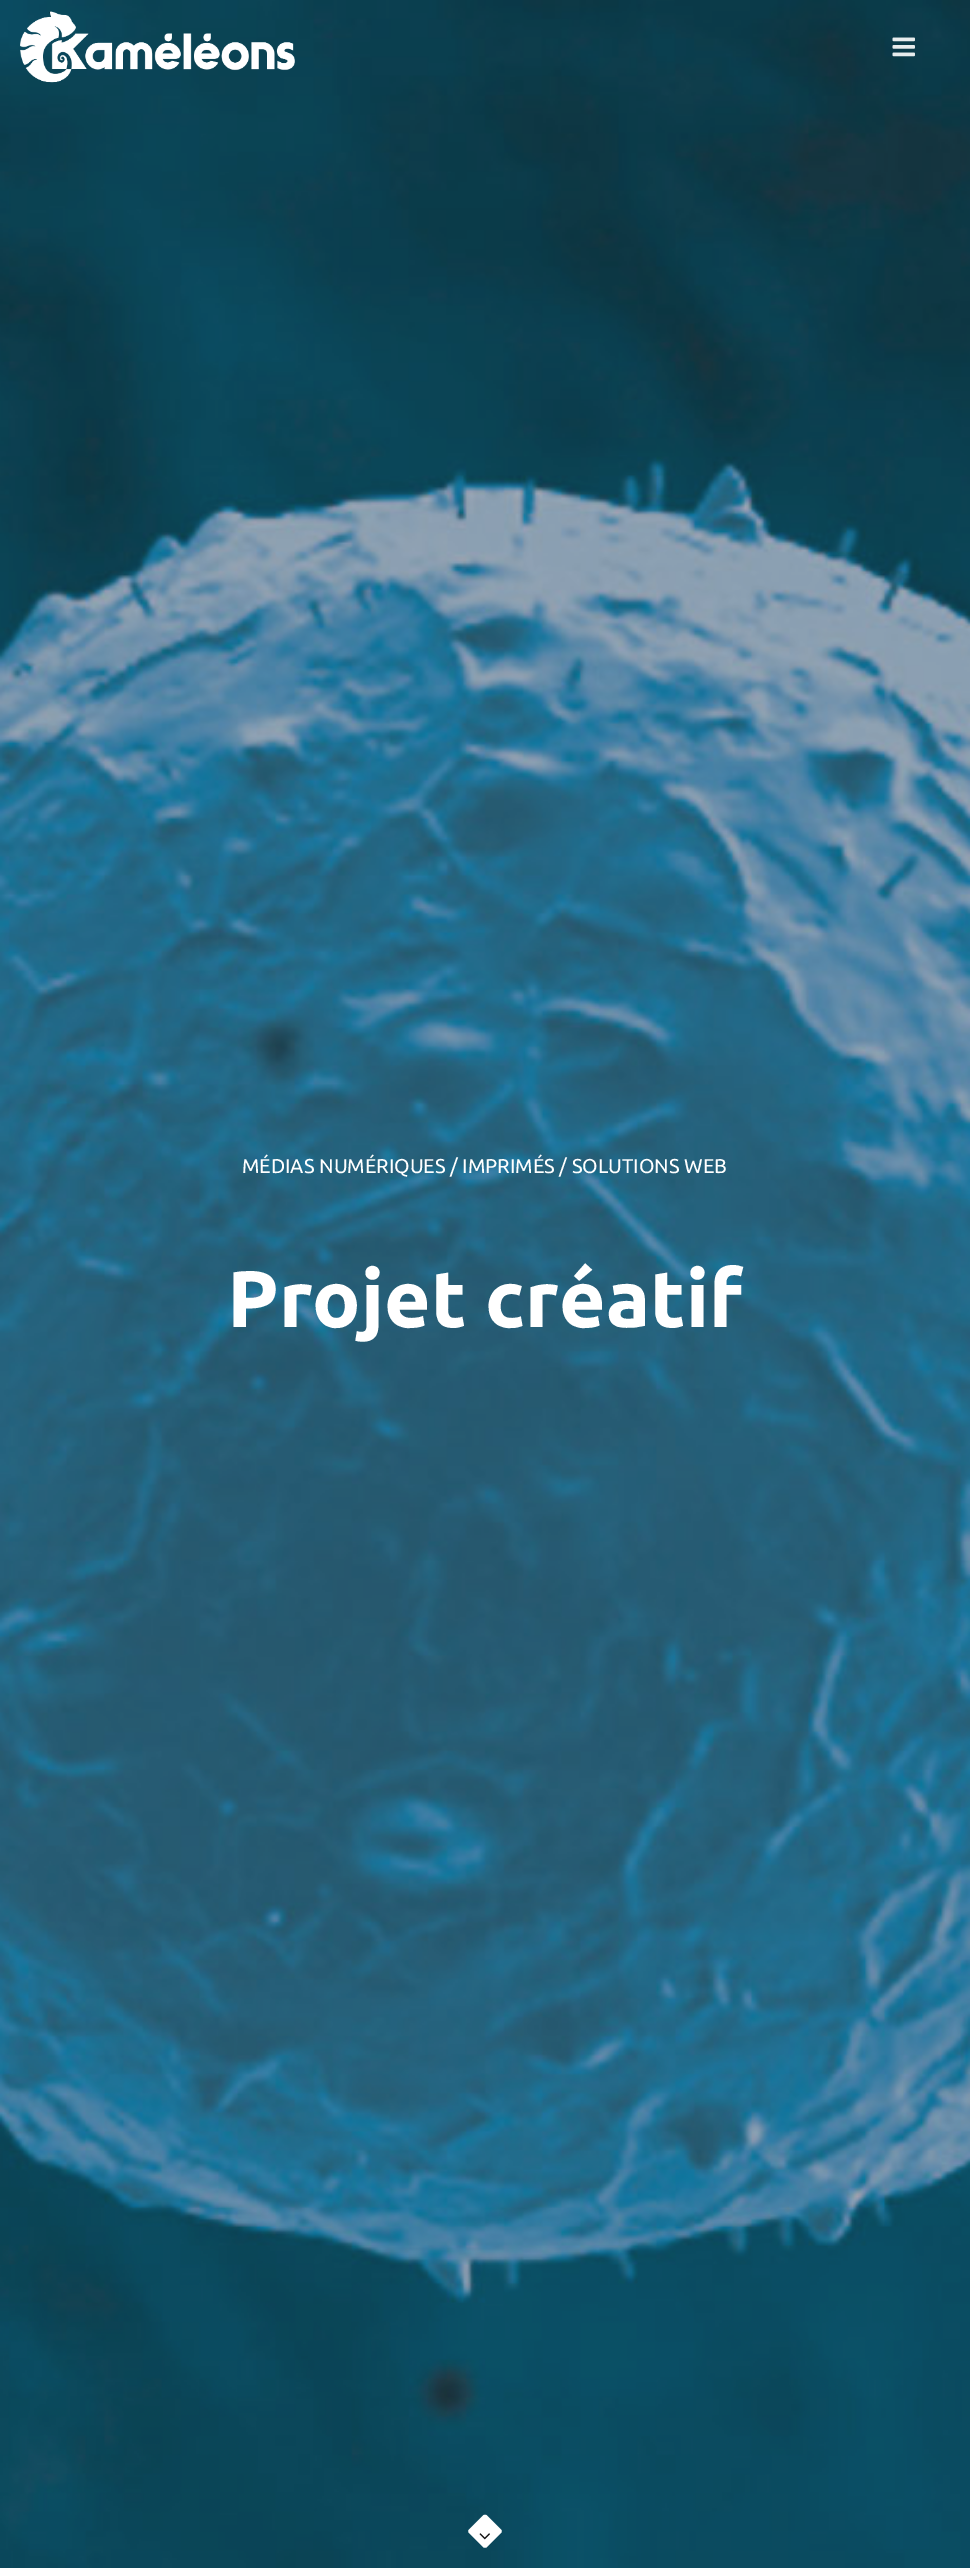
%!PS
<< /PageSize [970 2568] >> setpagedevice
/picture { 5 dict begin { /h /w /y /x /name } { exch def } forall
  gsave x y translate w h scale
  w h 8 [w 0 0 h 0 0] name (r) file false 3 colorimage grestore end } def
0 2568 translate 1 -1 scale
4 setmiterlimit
1 setgray
0 0 970 2568 rectfill
(img3.rgb) 0 0 970 2568 picture
(img1.rgb) 20 11 275 72 picture
(img2.rgb) 892 37 23 20 picture
/Ubuntu-Regular [20 0 0 -20 0 0] selectfont
242 1173 moveto (MÉDIAS NUMÉRIQUES / IMPRIMÉS / SOLUTIONS WEB) show
/Ubuntu-Bold [80 0 0 -80 0 0] selectfont
227 1327 moveto (Projet créatif) show
newpath 487 2515.5 moveto 501 2529.5 lineto 502 2530.5 502 2532 501 2533 curveto 487 2547 lineto 486 2548 484 2548 483 2547 curveto 469 2533 lineto 468 2532 468 2530.5 469 2529.5 curveto 483 2515.5 lineto 484 2514.5 486 2514.5 487 2515.5 curveto closepath fill
(img4.rgb) 479 2533 11 7 picture
showpage
